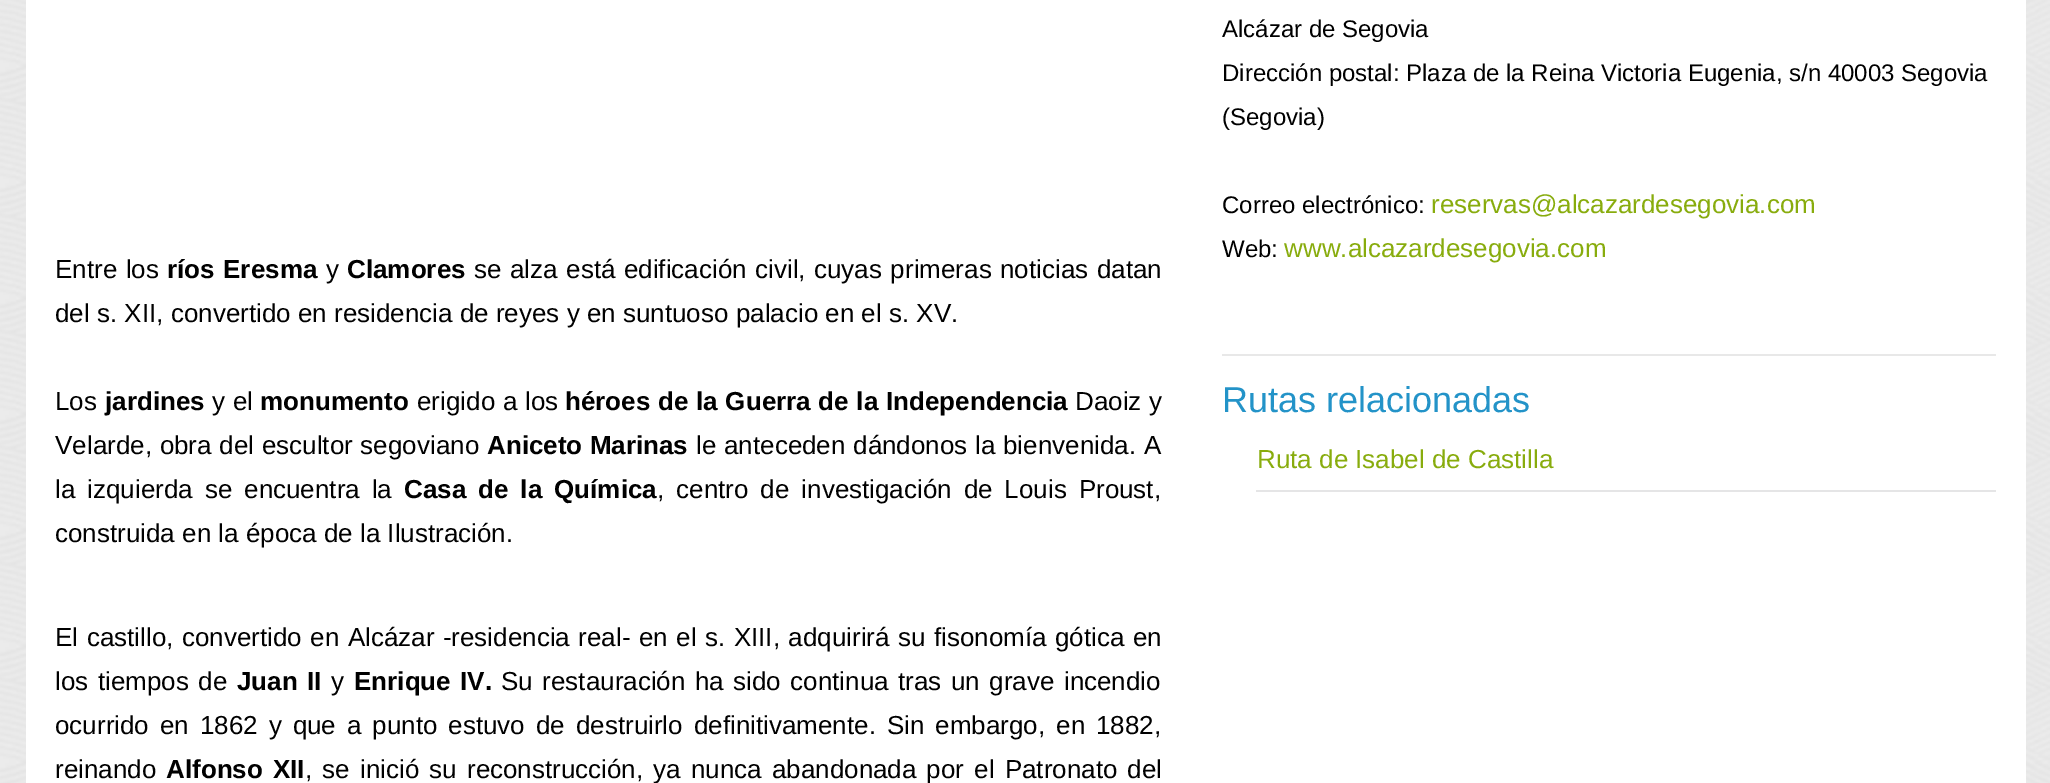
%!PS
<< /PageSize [2050 783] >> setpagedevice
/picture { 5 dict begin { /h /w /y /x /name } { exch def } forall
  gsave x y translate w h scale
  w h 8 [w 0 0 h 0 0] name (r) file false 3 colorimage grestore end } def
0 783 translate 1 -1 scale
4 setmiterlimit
1 setgray
0 0 2050 783 rectfill
(img1.rgb) 0 0 2050 783 picture
26 0 2000 783 rectfill
/LiberationSans-Regular [26 0 0 -26 0 0] selectfont
0 setgray
55 278 moveto 1.25 0 32 (Entre los) widthshow
/LiberationSans-Bold [26 0 0 -26 0 0] selectfont
167 278 moveto 1.25 0 32 (ríos Eresma) widthshow
/LiberationSans-Regular [26 0 0 -26 0 0] selectfont
326 278 moveto (y) show
/LiberationSans-Bold [26 0 0 -26 0 0] selectfont
347 278 moveto (Clamores) show
/LiberationSans-Regular [26 0 0 -26 0 0] selectfont
474 278 moveto 1.25 0 32 (se alza está edificación civil, cuyas primeras noticias datan) widthshow
55 322 moveto (del s. XII, convertido en residencia de reyes y en suntuoso palacio en el s. XV.) show
55 410 moveto (Los) show
/LiberationSans-Bold [26 0 0 -26 0 0] selectfont
105 410 moveto (jardines) show
/LiberationSans-Regular [26 0 0 -26 0 0] selectfont
212 410 moveto 0.5 0 32 (y el) widthshow
/LiberationSans-Bold [26 0 0 -26 0 0] selectfont
260 410 moveto (monumento) show
/LiberationSans-Regular [26 0 0 -26 0 0] selectfont
417 410 moveto 0.5 0 32 (erigido a los) widthshow
/LiberationSans-Bold [26 0 0 -26 0 0] selectfont
565 410 moveto 0.5 0 32 (héroes de la Guerra de la Independencia) widthshow
/LiberationSans-Regular [26 0 0 -26 0 0] selectfont
1075 410 moveto 0.5 0 32 (Daoiz y) widthshow
55 454 moveto 0.5 0 32 (Velarde, obra del escultor segoviano) widthshow
/LiberationSans-Bold [26 0 0 -26 0 0] selectfont
487 454 moveto (Aniceto Marinas) show
/LiberationSans-Regular [26 0 0 -26 0 0] selectfont
696 454 moveto 0.5 0 32 (le anteceden dándonos la bienvenida. A) widthshow
55 498 moveto 4.75 0 32 (la izquierda se encuentra la) widthshow
/LiberationSans-Bold [26 0 0 -26 0 0] selectfont
404 498 moveto 4.75 0 32 (Casa de la Química) widthshow
/LiberationSans-Regular [26 0 0 -26 0 0] selectfont
657 498 moveto 4.75 0 32 (, centro de investigación de Louis Proust,) widthshow
55 542 moveto (construida en la época de la Ilustración.) show
55 646 moveto 1.25 0 32 (El castillo, convertido en Alcázar -residencia real- en el s. XIII, adquirirá su fisonomía gótica en) widthshow
55 690 moveto 2.25 0 32 (los tiempos de) widthshow
/LiberationSans-Bold [26 0 0 -26 0 0] selectfont
237 690 moveto 2.25 0 32 (Juan II) widthshow
/LiberationSans-Regular [26 0 0 -26 0 0] selectfont
331 690 moveto (y) show
/LiberationSans-Bold [26 0 0 -26 0 0] selectfont
354 690 moveto 2.25 0 32 (Enrique IV.) widthshow
/LiberationSans-Regular [26 0 0 -26 0 0] selectfont
501 690 moveto 2.25 0 32 (Su restauración ha sido continua tras un grave incendio) widthshow
55 734 moveto 3.75 0 32 (ocurrido en 1862 y que a punto estuvo de destruirlo definitivamente. Sin embargo, en 1882,) widthshow
55 778 moveto (reinando) show
/LiberationSans-Bold [26 0 0 -26 0 0] selectfont
166 778 moveto 2.9 0 32 (Alfonso XII) widthshow
/LiberationSans-Regular [26 0 0 -26 0 0] selectfont
305 778 moveto 2.9 0 32 (, se inició su reconstrucción, ya nunca abandonada por el Patronato del) widthshow
0.91 setgray
1222 354 774 2 rectfill
/LiberationSans-Regular [24 0 0 -24 0 0] selectfont
0 setgray
1222 37 moveto (Alcázar de Segovia) show
1222 81 moveto (Dirección postal: Plaza de la Reina Victoria Eugenia, s/n 40003 Segovia) show
1222 125 moveto (\(Segovia\)) show
1222 213 moveto (Correo electrónico:) show
/LiberationSans-Regular [26 0 0 -26 0 0] selectfont
0.533 0.675 0.051 setrgbcolor
1431 213 moveto (reservas@alcazardesegovia.com) show
/LiberationSans-Regular [24 0 0 -24 0 0] selectfont
0 setgray
1222 257 moveto (Web:) show
/LiberationSans-Regular [26 0 0 -26 0 0] selectfont
0.533 0.675 0.051 setrgbcolor
1284 257 moveto (www.alcazardesegovia.com) show
/LiberationSans-Regular [36 0 0 -36 0 0] selectfont
0.137 0.576 0.784 setrgbcolor
1222 412 moveto (Rutas relacionadas) show
0.898 0.898 0.902 setrgbcolor
1256 490 740 2 rectfill
/LiberationSans-Regular [26 0 0 -26 0 0] selectfont
0.533 0.675 0.051 setrgbcolor
1257 468 moveto (Ruta de Isabel de Castilla) show
showpage
